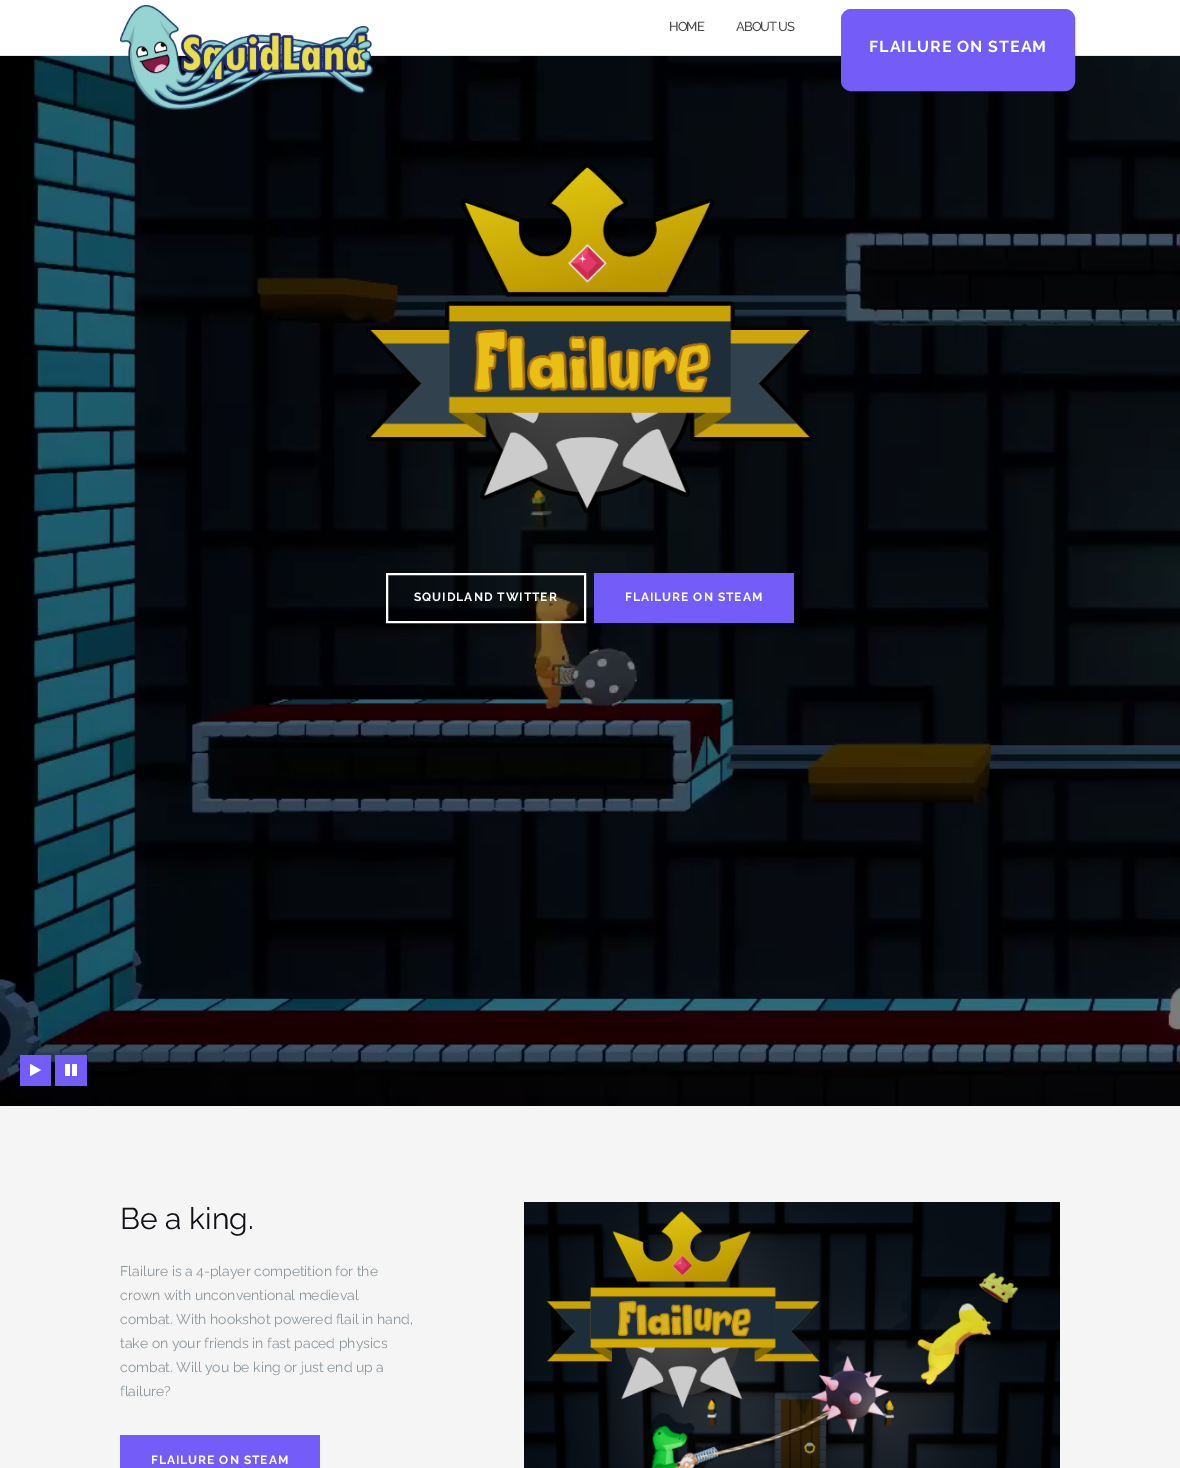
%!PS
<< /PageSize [1180 1468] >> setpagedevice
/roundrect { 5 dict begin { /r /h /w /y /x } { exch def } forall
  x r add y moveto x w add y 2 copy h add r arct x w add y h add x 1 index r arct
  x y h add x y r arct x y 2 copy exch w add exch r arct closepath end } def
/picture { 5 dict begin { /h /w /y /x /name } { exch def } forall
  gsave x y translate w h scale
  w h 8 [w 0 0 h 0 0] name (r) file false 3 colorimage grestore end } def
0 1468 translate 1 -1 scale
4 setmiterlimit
1 setgray
0 0 1180 1468 rectfill
0.902 setgray
0 55 1180 1 rectfill
(img2.rgb) 0 56 1180 1050 picture
(img1.rgb) 120 5 253 105 picture
/Raleway-Medium [13 0 0 -13 0 0] selectfont
0.298 setgray
669 31 moveto -1 0 (HOME) ashow
736 31 moveto -1 0 (ABOUT US) ashow
0.455 0.361 0.976 setrgbcolor
842 10 232 80 9 roundrect gsave fill grestore
2 setlinewidth
stroke
/Raleway-Bold [16 0 0 -16 0 0] selectfont
1 setgray
869 52 moveto 1 0 (FLAILURE ON STEAM) ashow
(img3.rgb) 366 163 448 350 picture
387 574 198 48 rectstroke
/Raleway-Bold [12 0 0 -12 0 0] selectfont
414 601 moveto 1 0 (SQUIDLAND TWITTER) ashow
0.455 0.361 0.976 setrgbcolor
594 573 200 50 rectfill
1 setgray
625 601 moveto 1 0 (FLAILURE ON STEAM) ashow
0.455 0.361 0.976 setrgbcolor
20 1055 31 31 rectfill
(img4.rgb) 30 1064 11 12 picture
55 1055 32 31 rectfill
(img5.rgb) 65 1064 12 12 picture
0.961 setgray
0 1106 1180 362 rectfill
/Raleway-Regular [30 0 0 -30 0 0] selectfont
0.055 0.063 0.082 setrgbcolor
120 1229 moveto (Be a king.) show
/Raleway-Regular [14 0 0 -14 0 0] selectfont
0.549 0.592 0.62 setrgbcolor
120 1276 moveto (Flailure is a 4-player competition for the) show
120 1300 moveto (crown with unconventional medieval) show
120 1324 moveto (combat. With hookshot powered flail in hand,) show
120 1348 moveto (take on your friends in fast paced physics) show
120 1372 moveto (combat. Will you be king or just end up a) show
120 1396 moveto (flailure?) show
0.455 0.361 0.976 setrgbcolor
120 1435 200 33 rectfill
/Raleway-Bold [12 0 0 -12 0 0] selectfont
1 setgray
151 1464 moveto 1 0 (FLAILURE ON STEAM) ashow
(img6.rgb) 524 1202 536 266 picture
showpage
